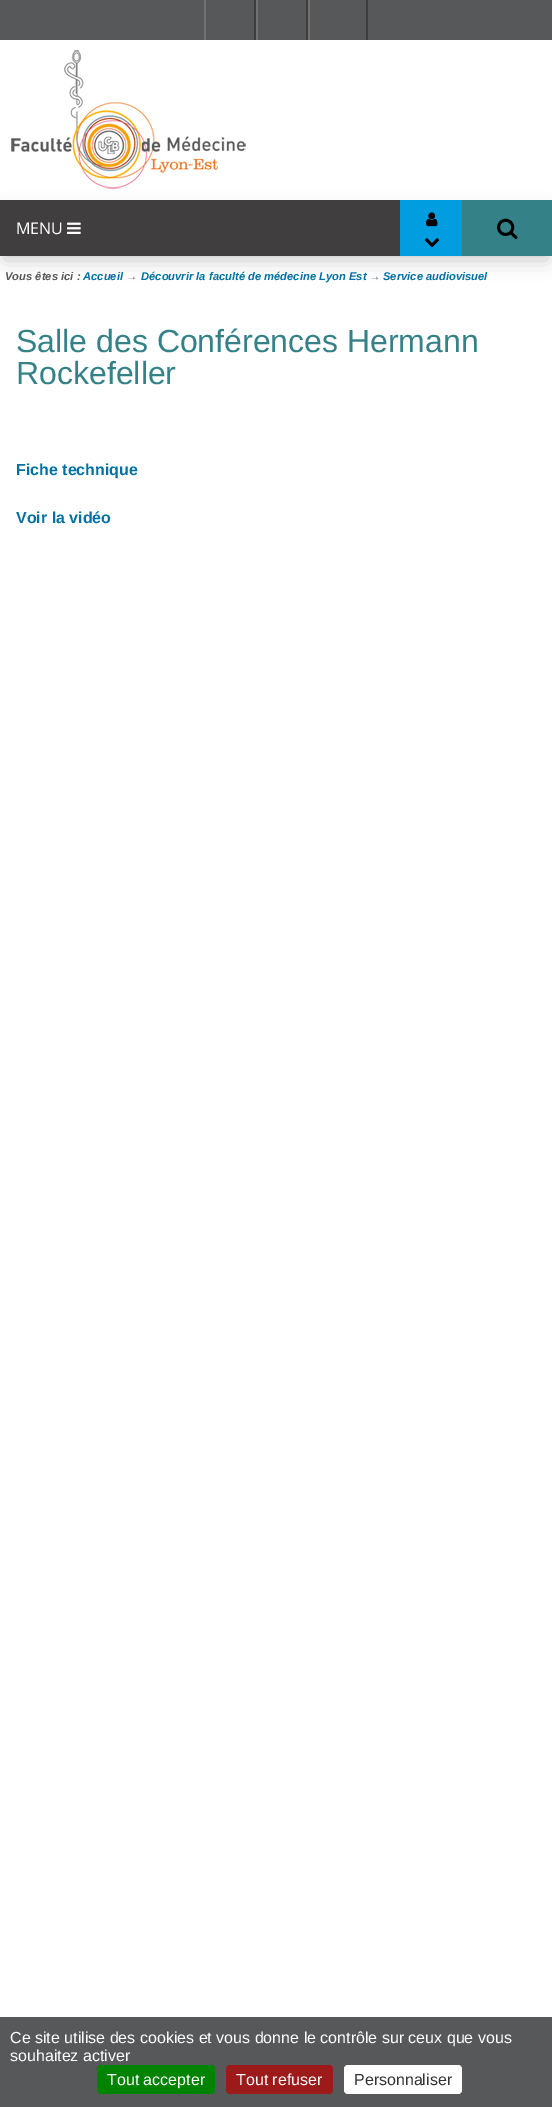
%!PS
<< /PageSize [552 2107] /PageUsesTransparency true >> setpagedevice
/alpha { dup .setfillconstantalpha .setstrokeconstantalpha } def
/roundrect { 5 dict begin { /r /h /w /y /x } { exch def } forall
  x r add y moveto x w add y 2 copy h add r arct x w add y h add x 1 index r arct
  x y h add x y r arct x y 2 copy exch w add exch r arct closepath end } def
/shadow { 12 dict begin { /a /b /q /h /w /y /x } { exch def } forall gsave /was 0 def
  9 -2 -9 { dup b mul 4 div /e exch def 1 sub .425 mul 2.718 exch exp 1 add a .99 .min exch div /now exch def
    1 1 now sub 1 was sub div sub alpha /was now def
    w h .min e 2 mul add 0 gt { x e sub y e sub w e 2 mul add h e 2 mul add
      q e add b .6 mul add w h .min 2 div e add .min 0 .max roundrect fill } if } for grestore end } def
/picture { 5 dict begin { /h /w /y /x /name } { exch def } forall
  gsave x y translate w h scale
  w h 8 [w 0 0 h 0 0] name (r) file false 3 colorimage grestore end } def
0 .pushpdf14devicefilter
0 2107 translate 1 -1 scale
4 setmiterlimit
1 setgray
0 0 552 2107 rectfill
0.341 0.345 0.353 setrgbcolor
0 0 552 40 rectfill
0.243 0.239 0.231 setrgbcolor
254 0 2 40 rectfill
0.447 0.439 0.443 setrgbcolor
204 0 2 40 rectfill
0.243 0.239 0.231 setrgbcolor
306 0 2 40 rectfill
0.447 0.439 0.443 setrgbcolor
256 0 2 40 rectfill
0.243 0.239 0.231 setrgbcolor
366 0 2 40 rectfill
0.447 0.439 0.443 setrgbcolor
308 0 2 40 rectfill
0.78 setgray
4 212 544 48 0 9.5 1 shadow
(img1.rgb) 11 50 235 139 picture
0.251 0.243 0.247 setrgbcolor
0 200 400 56 rectfill
/OpenSans-Regular [16 0 0 -16 0 0] selectfont
1 setgray
16 234 moveto (MENU) show
(img2.rgb) 67 222 14 12 picture
0 0.616 0.878 setrgbcolor
400 200 62 56 rectfill
(img3.rgb) 426 212 12 15 picture
(img4.rgb) 424 238 16 10 picture
0.204 0.506 0.533 setrgbcolor
462 200 90 56 rectfill
(img5.rgb) 497 218 21 22 picture
/LiberationSans-BoldItalic [11.2 0 0 -11.2 0 0] selectfont
0.341 0.345 0.353 setrgbcolor
5 280 moveto (Vous êtes ici :) show
0 0.443 0.635 setrgbcolor
83 280 moveto (Accueil) show
0.341 0.345 0.353 setrgbcolor
126 280 moveto (→) show
0 0.443 0.635 setrgbcolor
141 280 moveto (Découvrir la faculté de médecine Lyon Est) show
0.341 0.345 0.353 setrgbcolor
369 280 moveto (→) show
0 0.443 0.635 setrgbcolor
383 280 moveto (Service audiovisuel) show
/LiberationSans-Regular [32 0 0 -32 0 0] selectfont
0.204 0.506 0.533 setrgbcolor
16 352 moveto (Salle des Conférences Hermann) show
16 384 moveto (Rockefeller) show
/LiberationSans-Bold [16 0 0 -16 0 0] selectfont
0 0.443 0.635 setrgbcolor
16 475 moveto (Fiche technique) show
16 523 moveto (Voir la vidéo) show
0.341 0.345 0.353 setrgbcolor
0 2017 552 90 rectfill
/LiberationSans-Regular [16 0 0 -16 0 0] selectfont
1 setgray
10 2043 moveto (Ce site utilise des cookies et vous donne le contrôle sur ceux que vous) show
10 2061 moveto (souhaitez activer) show
0 0.514 0 setrgbcolor
97 2065 118 29 4 roundrect fill
1 setgray
107 2085 moveto (Tout accepter) show
0.612 0.102 0.102 setrgbcolor
226 2065 107 29 4 roundrect fill
1 setgray
236 2085 moveto (Tout refuser) show
344 2065 118 29 4 roundrect fill
0.2 setgray
354 2085 moveto (Personnaliser) show
.poppdf14devicefilter showpage
